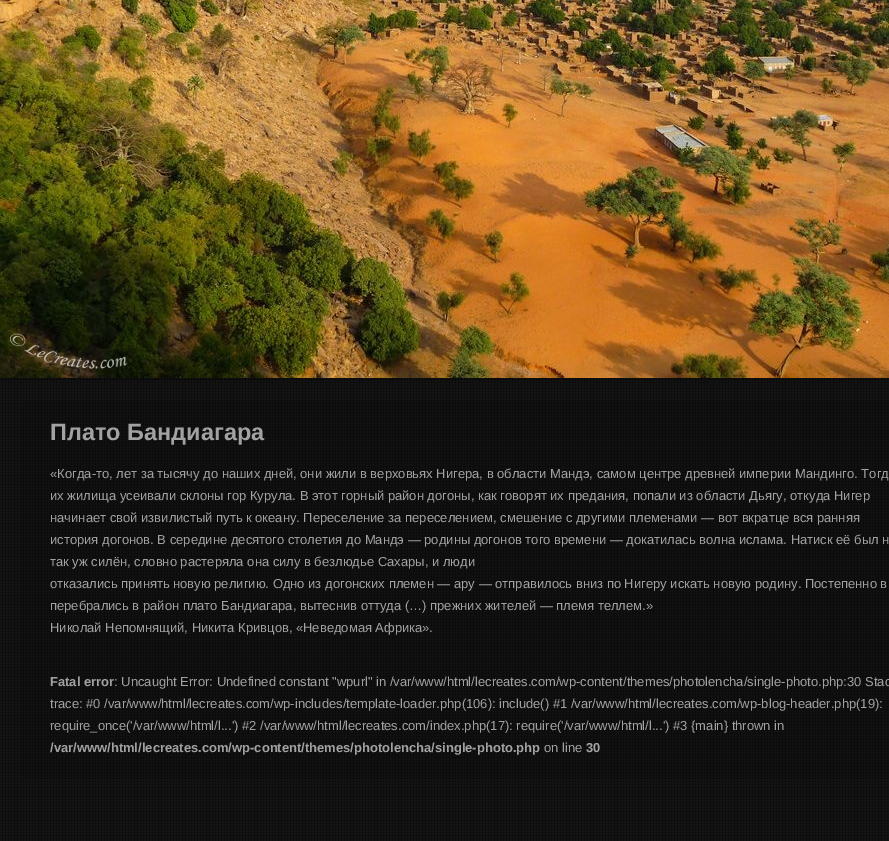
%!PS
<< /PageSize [889 841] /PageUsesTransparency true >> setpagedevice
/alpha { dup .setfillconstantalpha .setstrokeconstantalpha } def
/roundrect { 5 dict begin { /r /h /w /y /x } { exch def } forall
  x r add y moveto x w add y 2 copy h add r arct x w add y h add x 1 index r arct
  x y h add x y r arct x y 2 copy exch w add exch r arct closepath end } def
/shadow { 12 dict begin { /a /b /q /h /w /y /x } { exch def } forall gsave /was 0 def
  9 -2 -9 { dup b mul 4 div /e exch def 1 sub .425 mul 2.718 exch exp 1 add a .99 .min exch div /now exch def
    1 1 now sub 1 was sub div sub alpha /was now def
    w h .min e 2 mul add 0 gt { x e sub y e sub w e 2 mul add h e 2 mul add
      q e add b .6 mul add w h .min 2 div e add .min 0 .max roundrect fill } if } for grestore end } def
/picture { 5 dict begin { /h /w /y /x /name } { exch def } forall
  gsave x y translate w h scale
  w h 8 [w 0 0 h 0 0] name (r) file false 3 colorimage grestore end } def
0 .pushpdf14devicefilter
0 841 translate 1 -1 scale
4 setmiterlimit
1 setgray
0 0 889 841 rectfill
(img1.rgb) 0 378 889 463 picture
0 setgray
0 -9 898 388 0 3 0.6 shadow
(img2.rgb) 0 0 889 378 picture
0.15 alpha
20 401 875 378 6 roundrect fill
/LiberationSans-Bold [23.5 0 0 -23.5 0 0] selectfont
1 alpha
0.635 setgray
50 440 moveto (Плато Бандиагара) show
/LiberationSans-Regular [13 0 0 -13 0 0] selectfont
50 478 moveto («Когда-то, лет за тысячу до наших дней, они жили в верховьях Нигера, в области Мандэ, самом центре древней империи Мандинго. Тогд) show
50 500 moveto (их жилища усеивали склоны гор Курула. В этот горный район догоны, как говорят их предания, попали из области Дьягу, откуда Нигер) show
50 522 moveto (начинает свой извилистый путь к океану. Переселение за переселением, смешение с другими племенами — вот вкратце вся ранняя) show
50 544 moveto (история догонов. В середине десятого столетия до Мандэ — родины догонов того времени — докатилась волна ислама. Натиск её был н) show
50 566 moveto (так уж силён, словно растеряла она силу в безлюдье Сахары, и люди) show
50 588 moveto (отказались принять новую религию. Одно из догонских племен — ару — отправилось вниз по Нигеру искать новую родину. Постепенно в) show
50 610 moveto (перебрались в район плато Бандиагара, вытеснив оттуда \(…\) прежних жителей — племя теллем.») show
50 632 moveto (Николай Непомнящий, Никита Кривцов, «Неведомая Африка».) show
/LiberationSans-Bold [13 0 0 -13 0 0] selectfont
50 686 moveto (Fatal error) show
/LiberationSans-Regular [13 0 0 -13 0 0] selectfont
114 686 moveto (: Uncaught Error: Undefined constant "wpurl" in /var/www/html/lecreates.com/wp-content/themes/photolencha/single-photo.php:30 Stac) show
50 708 moveto (trace: #0 /var/www/html/lecreates.com/wp-includes/template-loader.php\(106\): include\(\) #1 /var/www/html/lecreates.com/wp-blog-header.php\(19\):) show
50 730 moveto (require_once\('/var/www/html/l...'\) #2 /var/www/html/lecreates.com/index.php\(17\): require\('/var/www/html/l...'\) #3 {main} thrown in) show
/LiberationSans-Bold [13 0 0 -13 0 0] selectfont
50 752 moveto (/var/www/html/lecreates.com/wp-content/themes/photolencha/single-photo.php) show
/LiberationSans-Regular [13 0 0 -13 0 0] selectfont
544 752 moveto (on line) show
/LiberationSans-Bold [13 0 0 -13 0 0] selectfont
586 752 moveto (30) show
.poppdf14devicefilter showpage
